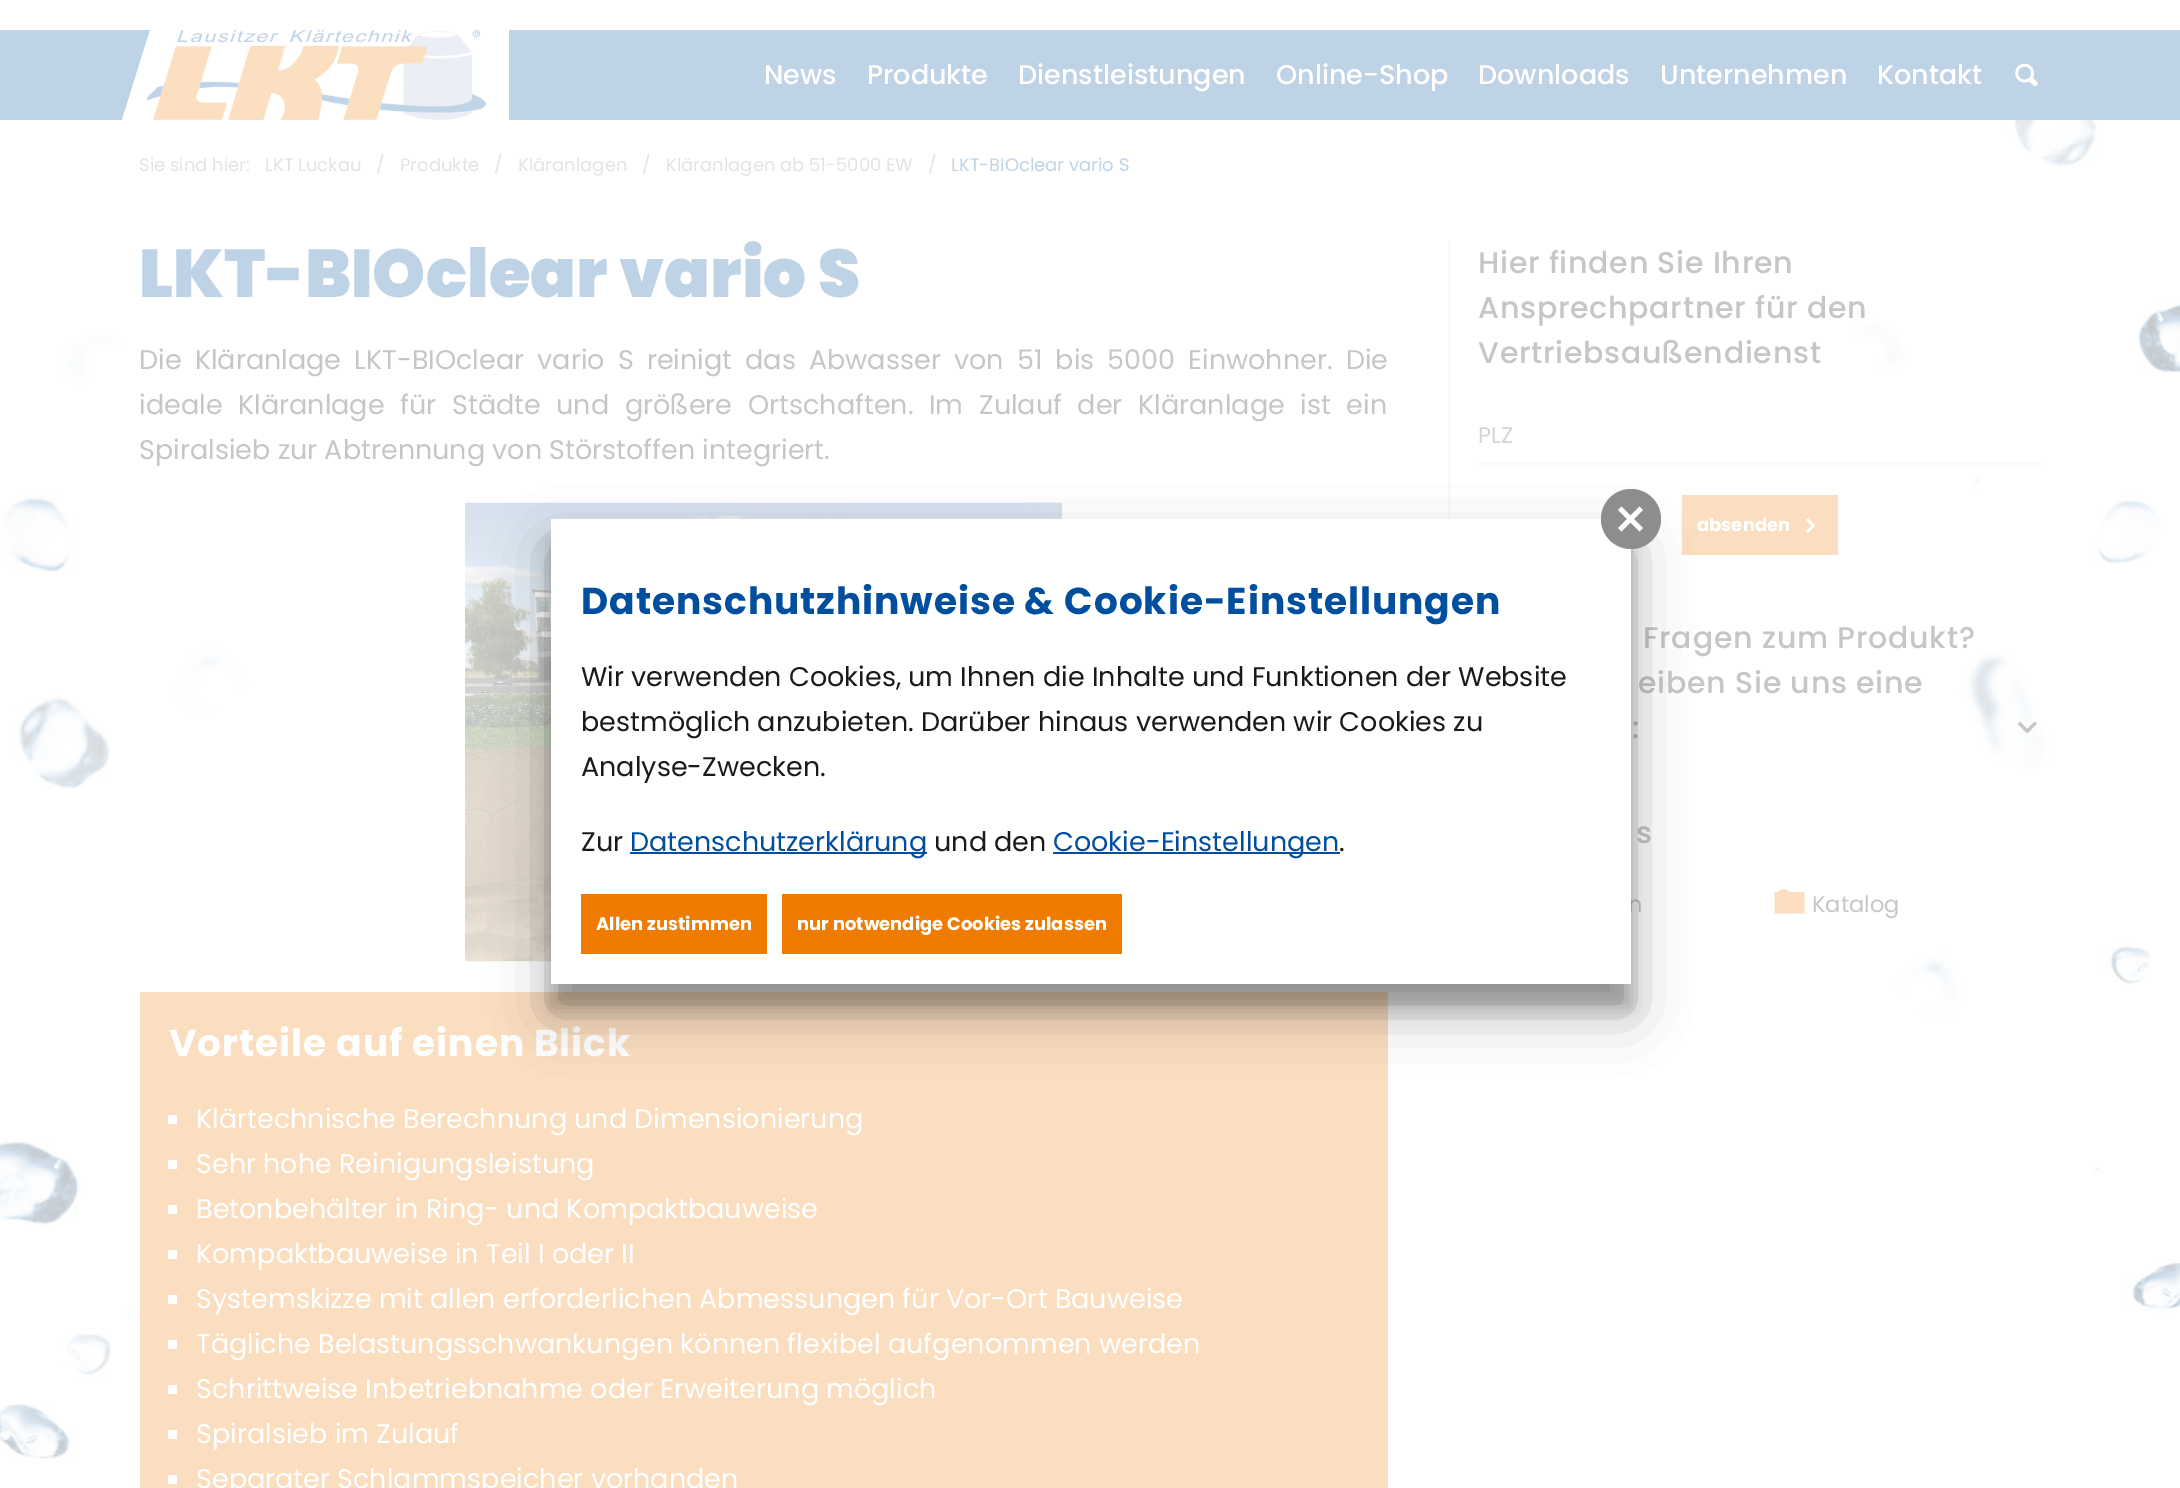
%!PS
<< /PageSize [2180 1488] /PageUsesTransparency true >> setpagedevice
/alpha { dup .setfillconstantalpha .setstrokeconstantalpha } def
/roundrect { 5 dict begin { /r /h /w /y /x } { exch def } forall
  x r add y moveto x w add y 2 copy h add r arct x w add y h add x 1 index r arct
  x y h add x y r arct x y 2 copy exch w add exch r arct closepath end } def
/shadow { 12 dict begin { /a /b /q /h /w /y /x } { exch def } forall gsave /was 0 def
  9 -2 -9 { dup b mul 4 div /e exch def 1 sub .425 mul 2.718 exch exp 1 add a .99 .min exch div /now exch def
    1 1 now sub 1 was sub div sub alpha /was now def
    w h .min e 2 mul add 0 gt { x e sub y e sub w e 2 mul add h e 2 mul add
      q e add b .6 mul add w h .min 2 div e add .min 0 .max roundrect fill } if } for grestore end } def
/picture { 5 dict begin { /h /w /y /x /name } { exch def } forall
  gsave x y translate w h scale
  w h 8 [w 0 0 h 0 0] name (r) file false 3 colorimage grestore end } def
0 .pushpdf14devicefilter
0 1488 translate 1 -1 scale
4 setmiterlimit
1 setgray
0 0 2180 1488 rectfill
(img1.rgb) 0 120 2180 1344 picture
0.749 0.827 0.906 setrgbcolor
0 30 2180 90 rectfill
1 setgray
newpath 150 30 moveto 338 30 lineto 309 120 lineto 122 120 lineto closepath fill
309 30 200 90 rectfill
(img2.rgb) 147 30 339 90 picture
/Poppins-Medium [27 0 0 -27 0 0] selectfont
764 84 moveto (News) show
867 84 moveto (Produkte) show
1018 84 moveto (Dienstleistungen) show
1276 84 moveto (Online-Shop) show
1478 84 moveto (Downloads) show
1660 84 moveto (Unternehmen) show
1877 84 moveto (Kontakt) show
(img3.rgb) 2015 63 23 24 picture
/Poppins-Regular [18 0 0 -18 0 0] selectfont
0.89 setgray
139 171 moveto (Sie sind hier:) show
265 171 moveto (LKT Luckau) show
376 171 moveto (/) show
400 171 moveto (Produkte) show
494 171 moveto (/) show
518 171 moveto (Kläranlagen) show
642 171 moveto (/) show
666 171 moveto (Kläranlagen ab 51-5000 EW) show
928 171 moveto (/) show
0.749 0.827 0.906 setrgbcolor
951 171 moveto (LKT-BIOclear vario S) show
/Poppins-Black [67.5 0 0 -67.5 0 0] selectfont
139 297 moveto (LKT-BIOclear vario S) show
/Poppins-Regular [27 0 0 -27 0 0] selectfont
0.776 setgray
139 369 moveto 5.9 0 32 (Die Kläranlage LKT-BIOclear vario S reinigt das Abwasser von 51 bis 5000 Einwohner. Die) widthshow
139 414 moveto 8.4 0 32 (ideale Kläranlage für Städte und größere Ortschaften. Im Zulauf der Kläranlage ist ein) widthshow
139 459 moveto (Spiralsieb zur Abtrennung von Störstoffen integriert.) show
(img4.rgb) 465 502 597 460 picture
0.984 0.871 0.749 setrgbcolor
140 992 1248 496 rectfill
/Poppins-Bold [37.5 0 0 -37.5 0 0] selectfont
1 setgray
169 1056 moveto 0.95 0 (Vorteile auf einen Blick) ashow
168 1115 9 9 rectfill
/Poppins-Regular [27 0 0 -27 0 0] selectfont
196 1128 moveto (Klärtechnische Berechnung und Dimensionierung) show
168 1160 9 9 rectfill
196 1173 moveto (Sehr hohe Reinigungsleistung) show
168 1205 9 9 rectfill
196 1218 moveto (Betonbehälter in Ring- und Kompaktbauweise) show
168 1250 9 9 rectfill
196 1263 moveto (Kompaktbauweise in Teil I oder II) show
168 1295 9 9 rectfill
196 1308 moveto (Systemskizze mit allen erforderlichen Abmessungen für Vor-Ort Bauweise) show
168 1340 9 9 rectfill
196 1353 moveto (Tägliche Belastungsschwankungen können flexibel aufgenommen werden) show
168 1385 9 9 rectfill
196 1398 moveto (Schrittweise Inbetriebnahme oder Erweiterung möglich) show
168 1430 9 9 rectfill
196 1443 moveto (Spiralsieb im Zulauf) show
168 1475 9 9 rectfill
196 1488 moveto (Separater Schlammspeicher vorhanden) show
0.98 setgray
1448 240 3 279 rectfill
/Poppins-Medium [30 0 0 -30 0 0] selectfont
0.776 setgray
1478 273 moveto 0.75 0 (Hier finden Sie Ihren) ashow
1478 318 moveto 0.75 0 (Ansprechpartner für den) ashow
1478 363 moveto 0.75 0 (Vertriebsaußendienst) ashow
/Poppins-Regular [22.5 0 0 -22.5 0 0] selectfont
0.831 setgray
1478 443 moveto (PLZ) show
0.98 setgray
1478 462 564 3 rectfill
0.984 0.871 0.749 setrgbcolor
1682 495 156 60 rectfill
/Poppins-Bold [18 0 0 -18 0 0] selectfont
1 setgray
1697 531 moveto (absenden) show
(img5.rgb) 1806 518 9 15 picture
/Poppins-Medium [30 0 0 -30 0 0] selectfont
0.776 setgray
1643 648 moveto 0.75 0 (Fragen zum Produkt?) ashow
1638 693 moveto 0.75 0 (eiben Sie uns eine) ashow
1632 738 moveto 0.75 0 (:) ashow
(img6.rgb) 2017 721 20 13 picture
1636 843 moveto 0.75 0 (s) ashow
/Poppins-Regular [22.5 0 0 -22.5 0 0] selectfont
1628 912 moveto (n) show
0.984 0.871 0.749 setrgbcolor
newpath 1774.5 913.5 moveto 1774.5 892 lineto 1778.5 892 lineto 1780.5 889.5 lineto 1787 889.5 lineto 1789.5 892 lineto 1804.5 892 lineto 1804.5 913.5 lineto closepath fill
0.776 setgray
1812 912 moveto (Katalog) show
0 setgray
551 542 1080 465 0 9 0.22 shadow
551 548 1080 465 0 28.5 0.3 shadow
1 setgray
551 519 1080 465 rectfill
0.553 setgray
newpath 1631 519 30 0 360 arc closepath fill
1 setgray
newpath 1621.5 506.5 moveto 1643 528 lineto 1639.5 531.5 lineto 1618 510 lineto closepath fill
newpath 1618 528 moveto 1639.5 506.5 lineto 1643 510 lineto 1621.5 531.5 lineto closepath fill
/Poppins-Bold [37.5 0 0 -37.5 0 0] selectfont
0 0.306 0.62 setrgbcolor
581 614 moveto 0.95 0 (Datenschutzhinweise & Cookie-Einstellungen) ashow
/Poppins-Regular [27 0 0 -27 0 0] selectfont
0.102 setgray
581 686 moveto (Wir verwenden Cookies, um Ihnen die Inhalte und Funktionen der Website) show
581 731 moveto (bestmöglich anzubieten. Darüber hinaus verwenden wir Cookies zu) show
581 776 moveto (Analyse-Zwecken.) show
581 851 moveto (Zur) show
0 0.306 0.62 setrgbcolor
630 852 297 2 rectfill
630 851 moveto (Datenschutzerklärung) show
0.102 setgray
934 851 moveto (und den) show
0 0.306 0.62 setrgbcolor
1053 852 287 2 rectfill
1053 851 moveto (Cookie-Einstellungen) show
0.102 setgray
1339 851 moveto (.) show
0.937 0.486 0 setrgbcolor
581 894 186 60 rectfill
/Poppins-Bold [18 0 0 -18 0 0] selectfont
1 setgray
596 930 moveto (Allen zustimmen) show
0.937 0.486 0 setrgbcolor
782 894 340 60 rectfill
1 setgray
797 930 moveto (nur notwendige Cookies zulassen) show
.poppdf14devicefilter showpage
